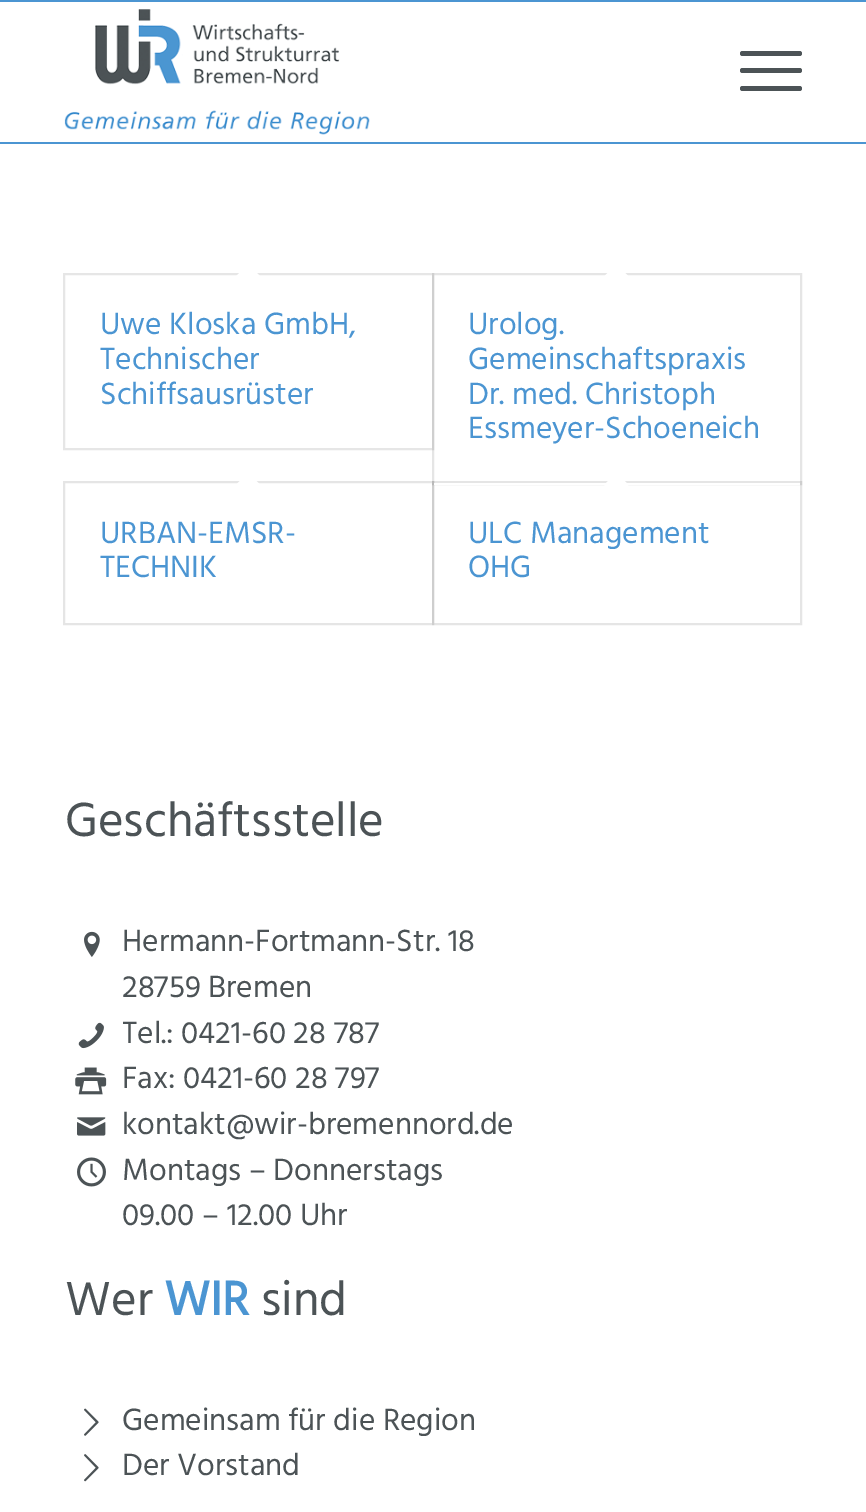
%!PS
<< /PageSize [866 1512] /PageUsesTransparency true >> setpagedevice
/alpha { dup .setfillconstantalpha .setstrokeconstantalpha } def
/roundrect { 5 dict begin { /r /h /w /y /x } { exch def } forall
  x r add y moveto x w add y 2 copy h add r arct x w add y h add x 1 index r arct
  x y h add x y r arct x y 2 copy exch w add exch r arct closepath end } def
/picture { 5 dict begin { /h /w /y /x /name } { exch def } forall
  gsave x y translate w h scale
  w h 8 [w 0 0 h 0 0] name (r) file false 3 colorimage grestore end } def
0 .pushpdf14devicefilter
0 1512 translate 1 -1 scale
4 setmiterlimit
1 setgray
0 0 866 1512 rectfill
0.294 0.584 0.824 setrgbcolor
0 0 866 2 rectfill
0 142 866 2 rectfill
(img1.rgb) 64 9 306 126 picture
0.298 0.325 0.337 setrgbcolor
740 68 62 5 2.5 roundrect fill
740 51 62 5 2.5 roundrect fill
740 86 62 5 2.5 roundrect fill
0.902 setgray
2 setlinewidth
64 274 369 175 rectstroke
1 setgray
newpath 248 264 moveto 260.5 276.5 lineto 248 289 lineto 236 276.5 lineto closepath fill
/Hind-Regular [31.5 0 0 -31.5 0 0] selectfont
0.294 0.584 0.824 setrgbcolor
100 334 moveto (Uwe Kloska GmbH,) show
100 369 moveto (Technischer) show
100 404 moveto (Schiffsausrüster) show
0.1 alpha
0 setgray
433 274 368 210 rectstroke
1 alpha
1 setgray
newpath 616.5 264 moveto 628.5 276.5 lineto 616.5 289 lineto 604 276.5 lineto closepath fill
0.294 0.584 0.824 setrgbcolor
468 334 moveto (Urolog.) show
468 369 moveto (Gemeinschaftspraxis) show
468 404 moveto (Dr. med. Christoph) show
468 438 moveto (Essmeyer-Schoeneich) show
0.1 alpha
0 setgray
64 482 369 142 rectstroke
1 alpha
1 setgray
newpath 248 472.5 moveto 260.5 485 lineto 248 497.5 lineto 236 485 lineto closepath fill
0.294 0.584 0.824 setrgbcolor
100 543 moveto (URBAN-EMSR-) show
100 577 moveto (TECHNIK) show
0.1 alpha
0 setgray
433 482 368 142 rectstroke
1 alpha
1 setgray
434 483 366 2 rectfill
newpath 616.5 472.5 moveto 628.5 485 lineto 616.5 497.5 lineto 604 485 lineto closepath fill
0.294 0.584 0.824 setrgbcolor
468 543 moveto (ULC Management) show
468 577 moveto (OHG) show
/Hind-Regular [49 0 0 -49 0 0] selectfont
0.298 0.325 0.337 setrgbcolor
65 836 moveto (Geschäftsstelle) show
(img2.rgb) 84 931 16 26 picture
/Hind-Regular [31.5 0 0 -31.5 0 0] selectfont
122 951 moveto (Hermann-Fortmann-Str. 18) show
122 997 moveto (28759 Bremen) show
(img3.rgb) 78 1022 26 27 picture
gsave
123 1013 679 46 rectclip
122 1043 moveto (Tel.: 0421-60 28 787) show
grestore
(img4.rgb) 75 1067 32 28 picture
122 1088 moveto (Fax: 0421-60 28 797) show
(img5.rgb) 77 1117 29 19 picture
122 1134 moveto (kontakt@wir-bremennord.de) show
(img6.rgb) 77 1157 29 30 picture
122 1180 moveto (Montags – Donnerstags) show
122 1225 moveto (09.00 – 12.00 Uhr) show
/Hind-Regular [49 0 0 -49 0 0] selectfont
65 1315 moveto (Wer) show
/Hind-Bold [49 0 0 -49 0 0] selectfont
0.294 0.584 0.824 setrgbcolor
164 1315 moveto (WIR) show
/Hind-Regular [49 0 0 -49 0 0] selectfont
0.298 0.325 0.337 setrgbcolor
261 1315 moveto (sind) show
(img7.rgb) 84 1408 15 28 picture
/Hind-Regular [31.5 0 0 -31.5 0 0] selectfont
122 1430 moveto (Gemeinsam für die Region) show
(img8.rgb) 84 1454 15 28 picture
122 1475 moveto (Der Vorstand) show
.poppdf14devicefilter showpage
